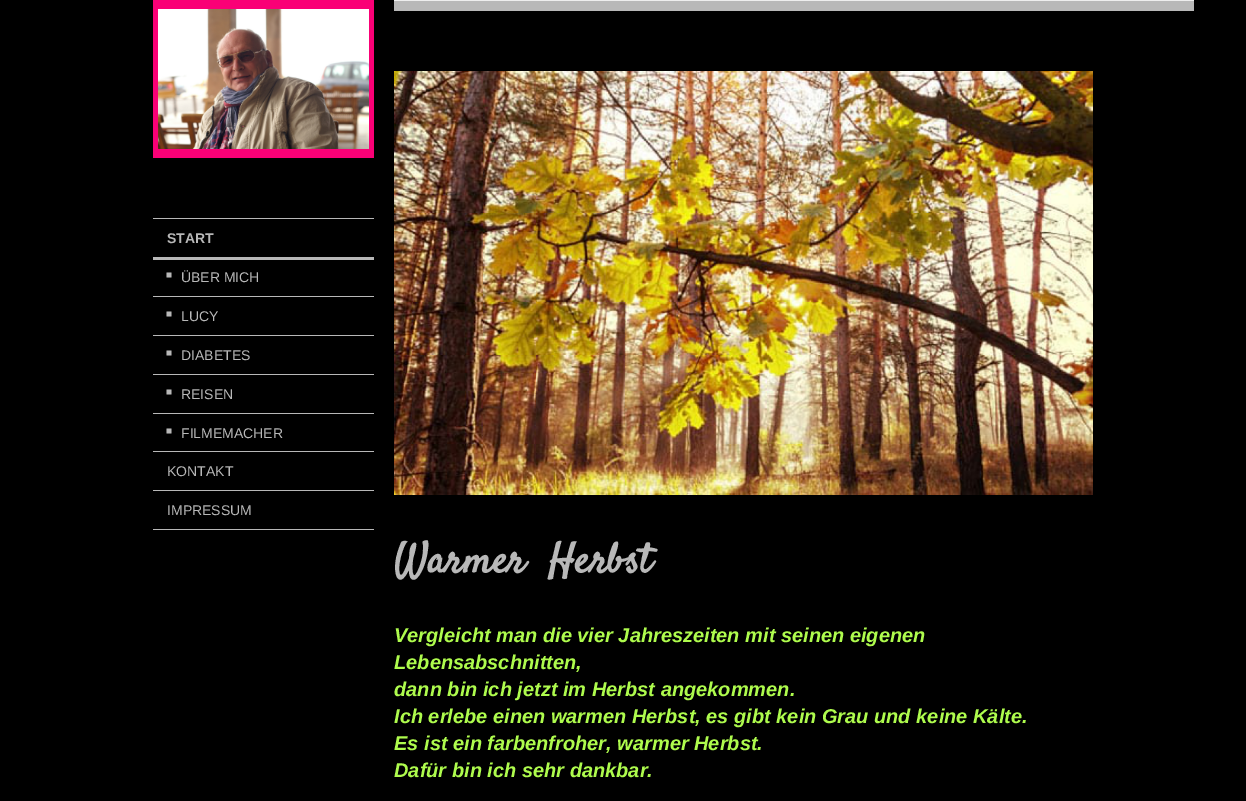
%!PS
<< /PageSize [1246 801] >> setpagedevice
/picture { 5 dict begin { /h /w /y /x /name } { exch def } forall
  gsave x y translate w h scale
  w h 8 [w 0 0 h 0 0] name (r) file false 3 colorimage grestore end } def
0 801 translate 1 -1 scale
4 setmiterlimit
0 setgray
0 0 1246 801 rectfill
0.98 0 0.463 setrgbcolor
153 0 221 158 rectfill
(img1.rgb) 158 9 211 140 picture
0.722 setgray
153 218 221 1 rectfill
153 257 221 3 rectfill
/LiberationSans-Bold [14 0 0 -14 0 0] selectfont
167 243 moveto (START) show
153 451 221 1 rectfill
153 296 221 1 rectfill
/LiberationSans-Regular [10 0 0 -10 0 0] selectfont
166 278 moveto (■) show
/LiberationSans-Regular [14 0 0 -14 0 0] selectfont
181 282 moveto (ÜBER MICH) show
153 335 221 1 rectfill
/LiberationSans-Regular [10 0 0 -10 0 0] selectfont
166 317 moveto (■) show
/LiberationSans-Regular [14 0 0 -14 0 0] selectfont
181 321 moveto (LUCY) show
153 374 221 1 rectfill
/LiberationSans-Regular [10 0 0 -10 0 0] selectfont
166 356 moveto (■) show
/LiberationSans-Regular [14 0 0 -14 0 0] selectfont
181 360 moveto (DIABETES) show
153 413 221 1 rectfill
/LiberationSans-Regular [10 0 0 -10 0 0] selectfont
166 395 moveto (■) show
/LiberationSans-Regular [14 0 0 -14 0 0] selectfont
181 399 moveto (REISEN) show
/LiberationSans-Regular [10 0 0 -10 0 0] selectfont
166 434 moveto (■) show
/LiberationSans-Regular [14 0 0 -14 0 0] selectfont
181 438 moveto (FILMEMACHER) show
153 490 221 1 rectfill
167 476 moveto (KONTAKT) show
153 529 221 1 rectfill
167 515 moveto (IMPRESSUM) show
394 1 800 10 rectfill
0.933 setgray
394 0 800 1 rectfill
(img2.rgb) 394 71 699 424 picture
/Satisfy-Bold [41.5 0 0 -41.5 0 0] selectfont
0.722 setgray
394 572 moveto (Warmer  Herbst) show
/LiberationSans-BoldItalic [20 0 0 -20 0 0] selectfont
0.682 0.984 0.302 setrgbcolor
394 642 moveto (Vergleicht man die vier Jahreszeiten mit seinen eigenen) show
394 669 moveto (Lebensabschnitten,) show
394 696 moveto (dann bin ich jetzt im Herbst angekommen.) show
394 723 moveto (Ich erlebe einen warmen Herbst, es gibt kein Grau und keine Kälte.) show
394 750 moveto (Es ist ein farbenfroher, warmer Herbst.) show
394 777 moveto (Dafür bin ich sehr dankbar.) show
showpage
